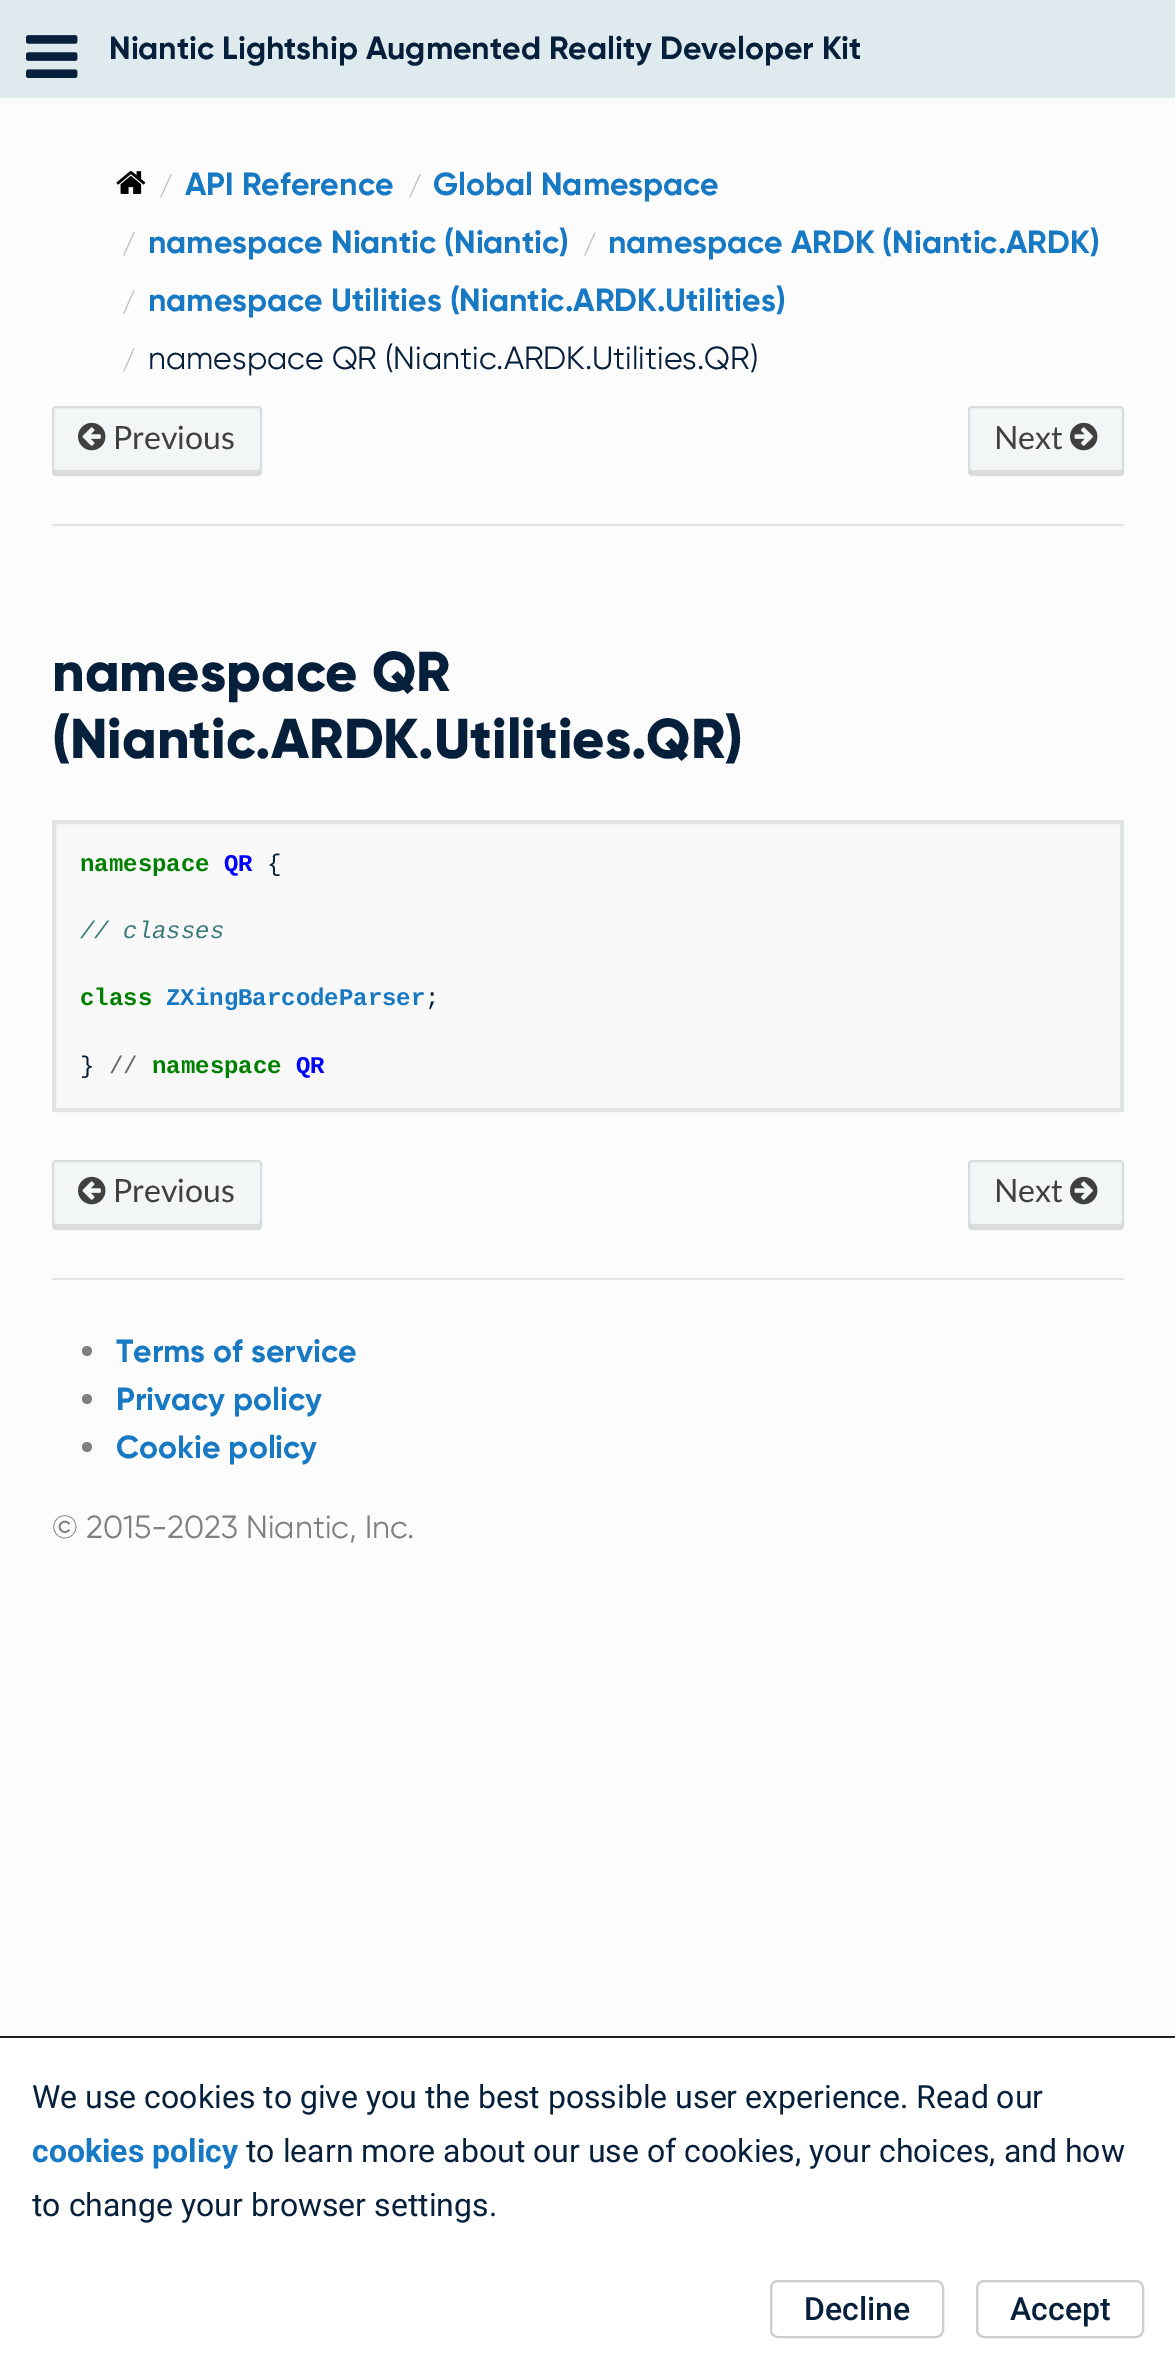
%!PS
<< /PageSize [1175 2370] /PageUsesTransparency true >> setpagedevice
/alpha { dup .setfillconstantalpha .setstrokeconstantalpha } def
/roundrect { 5 dict begin { /r /h /w /y /x } { exch def } forall
  x r add y moveto x w add y 2 copy h add r arct x w add y h add x 1 index r arct
  x y h add x y r arct x y 2 copy exch w add exch r arct closepath end } def
/picture { 5 dict begin { /h /w /y /x /name } { exch def } forall
  gsave x y translate w h scale
  w h 8 [w 0 0 h 0 0] name (r) file false 3 colorimage grestore end } def
0 .pushpdf14devicefilter
0 2370 translate 1 -1 scale
4 setmiterlimit
0.988 setgray
0 0 1175 2370 rectfill
0.871 0.918 0.929 setrgbcolor
0 0 1175 98 rectfill
(img1.rgb) 26 35 52 43 picture
/Gilroy-Bold [32 0 0 -32 0 0] selectfont
0.024 0.125 0.235 setrgbcolor
109 59 moveto (Niantic Lightship Augmented Reality Developer Kit) show
(img2.rgb) 116 171 30 23 picture
/gilroy-Regular [26 0 0 -26 0 0] selectfont
0.733 setgray
159 195 moveto (/) show
/Gilroy-Bold [32 0 0 -32 0 0] selectfont
0.09 0.475 0.769 setrgbcolor
185 195 moveto (API Reference) show
/gilroy-Regular [26 0 0 -26 0 0] selectfont
0.733 setgray
408 195 moveto (/) show
/Gilroy-Bold [32 0 0 -32 0 0] selectfont
0.09 0.475 0.769 setrgbcolor
433 195 moveto (Global Namespace) show
/gilroy-Regular [26 0 0 -26 0 0] selectfont
0.733 setgray
122 253 moveto (/) show
/Gilroy-Bold [32 0 0 -32 0 0] selectfont
0.09 0.475 0.769 setrgbcolor
148 253 moveto (namespace Niantic \(Niantic\)) show
/gilroy-Regular [26 0 0 -26 0 0] selectfont
0.733 setgray
583 253 moveto (/) show
/Gilroy-Bold [32 0 0 -32 0 0] selectfont
0.09 0.475 0.769 setrgbcolor
608 253 moveto (namespace ARDK \(Niantic.ARDK\)) show
/gilroy-Regular [26 0 0 -26 0 0] selectfont
0.733 setgray
122 311 moveto (/) show
/Gilroy-Bold [32 0 0 -32 0 0] selectfont
0.09 0.475 0.769 setrgbcolor
148 311 moveto (namespace Utilities \(Niantic.ARDK.Utilities\)) show
/gilroy-Regular [26 0 0 -26 0 0] selectfont
0.733 setgray
122 369 moveto (/) show
/gilroy-Regular [32 0 0 -32 0 0] selectfont
0.024 0.125 0.235 setrgbcolor
148 369 moveto (namespace QR \(Niantic.ARDK.Utilities.QR\)) show
0.953 0.965 0.965 setrgbcolor
52 406 210 70 4 roundrect fill
0.859 0.867 0.867 setrgbcolor
newpath 54 468 moveto 54 472 lineto 54 473 55 474 56 474 curveto 258 474 lineto 259 474 260 473 260 472 curveto 260 468 lineto 260 469 259 470 258 470 curveto 56 470 lineto 54 469 lineto closepath fill
0.1 alpha
0 setgray
2 setlinewidth
53 407 208 68 3 roundrect stroke
1 alpha
(img3.rgb) 78 422 28 29 picture
/Lato-Regular [32 0 0 -32 0 0] selectfont
0.251 setgray
113 449 moveto (Previous) show
0.953 0.965 0.965 setrgbcolor
968 406 156 70 4 roundrect fill
0.859 0.867 0.867 setrgbcolor
newpath 970 468 moveto 970 472 lineto 970 473 971 474 972 474 curveto 1120 474 lineto 1121 474 1122 473 1122 472 curveto 1122 468 lineto 1122 469 1121 470 1120 470 curveto 972 470 lineto 971 470 970 469 970 468 curveto closepath fill
0.1 alpha
0 setgray
969 407 154 68 3 roundrect stroke
1 alpha
0.251 setgray
994 449 moveto (Next) show
(img4.rgb) 1070 422 28 29 picture
0.882 0.894 0.898 setrgbcolor
52 524 1072 2 rectfill
/Gilroy-ExtraBold [56 0 0 -56 0 0] selectfont
0.024 0.125 0.235 setrgbcolor
52 691 moveto (namespace QR) show
52 758 moveto (\(Niantic.ARDK.Utilities.QR\)) show
0.973 setgray
56 824 1064 284 rectfill
0.882 0.894 0.898 setrgbcolor
53 821 1070 290 rectstroke
55 823 1066 286 rectstroke
/LiberationMono-Bold [24 0 0 -24 0 0] selectfont
0 0.502 0 setrgbcolor
80 871 moveto (namespace) show
0 0 1 setrgbcolor
224 871 moveto (QR) show
/LiberationMono-Regular [24 0 0 -24 0 0] selectfont
0.024 0.125 0.235 setrgbcolor
267 871 moveto ({) show
/LiberationMono-Italic [24 0 0 -24 0 0] selectfont
0.239 0.482 0.482 setrgbcolor
80 938 moveto (// classes) show
/LiberationMono-Bold [24 0 0 -24 0 0] selectfont
0 0.502 0 setrgbcolor
80 1005 moveto (class) show
0.09 0.475 0.769 setrgbcolor
166 1005 moveto (ZXingBarcodeParser) show
/LiberationMono-Regular [24 0 0 -24 0 0] selectfont
0.024 0.125 0.235 setrgbcolor
425 1005 moveto (;) show
80 1073 moveto (}) show
0.4 setgray
109 1073 moveto (//) show
/LiberationMono-Bold [24 0 0 -24 0 0] selectfont
0 0.502 0 setrgbcolor
152 1073 moveto (namespace) show
0 0 1 setrgbcolor
296 1073 moveto (QR) show
0.953 0.965 0.965 setrgbcolor
52 1160 210 70 4 roundrect fill
0.859 0.867 0.867 setrgbcolor
newpath 54 1222 moveto 54 1226 lineto 54 1227 55 1228 56 1228 curveto 258 1228 lineto 259 1228 260 1227 260 1226 curveto 260 1222 lineto 260 1223 259 1224 258 1224 curveto 56 1224 lineto 54 1223 lineto closepath fill
0.1 alpha
0 setgray
53 1161 208 68 3 roundrect stroke
1 alpha
(img3.rgb) 78 1176 28 29 picture
/Lato-Regular [32 0 0 -32 0 0] selectfont
0.251 setgray
113 1202 moveto (Previous) show
0.953 0.965 0.965 setrgbcolor
968 1160 156 70 4 roundrect fill
0.859 0.867 0.867 setrgbcolor
newpath 970 1222 moveto 970 1226 lineto 970 1227 971 1228 972 1228 curveto 1120 1228 lineto 1121 1228 1122 1227 1122 1226 curveto 1122 1222 lineto 1122 1223 1121 1224 1120 1224 curveto 972 1224 lineto 971 1224 970 1223 970 1222 curveto closepath fill
0.1 alpha
0 setgray
969 1161 154 68 3 roundrect stroke
1 alpha
0.251 setgray
994 1202 moveto (Next) show
(img4.rgb) 1070 1176 28 29 picture
0.882 0.894 0.898 setrgbcolor
52 1278 1072 2 rectfill
0.502 setgray
newpath 87 1351 5 0 360 arc closepath fill
/Gilroy-Bold [32 0 0 -32 0 0] selectfont
0.09 0.475 0.769 setrgbcolor
116 1362 moveto (Terms of service) show
0.502 setgray
newpath 87 1399 5 0 360 arc closepath fill
0.09 0.475 0.769 setrgbcolor
116 1410 moveto (Privacy policy) show
0.502 setgray
newpath 87 1447 5 0 360 arc closepath fill
0.09 0.475 0.769 setrgbcolor
116 1458 moveto (Cookie policy) show
/gilroy-Regular [32 0 0 -32 0 0] selectfont
0.502 setgray
52 1538 moveto (© 2015-2023 Niantic, Inc.) show
1 setgray
0 2038 1175 332 rectfill
0.129 setgray
0 2036 1175 2 rectfill
/Roboto-Regular [32 0 0 -32 0 0] selectfont
0.024 0.125 0.235 setrgbcolor
32 2108 moveto (We use cookies to give you the best possible user experience. Read our) show
/Roboto-Bold [32 0 0 -32 0 0] selectfont
0.09 0.475 0.769 setrgbcolor
32 2162 moveto (cookies policy) show
/Roboto-Regular [32 0 0 -32 0 0] selectfont
0.024 0.125 0.235 setrgbcolor
246 2162 moveto (to learn more about our use of cookies, your choices, and how) show
32 2216 moveto (to change your browser settings.) show
0.8 setgray
771 2281 172 56 7 roundrect stroke
/Roboto-Medium [32 0 0 -32 0 0] selectfont
0.024 0.125 0.235 setrgbcolor
804 2320 moveto (Decline) show
0.8 setgray
977 2281 166 56 7 roundrect stroke
0.024 0.125 0.235 setrgbcolor
1010 2320 moveto (Accept) show
.poppdf14devicefilter showpage
